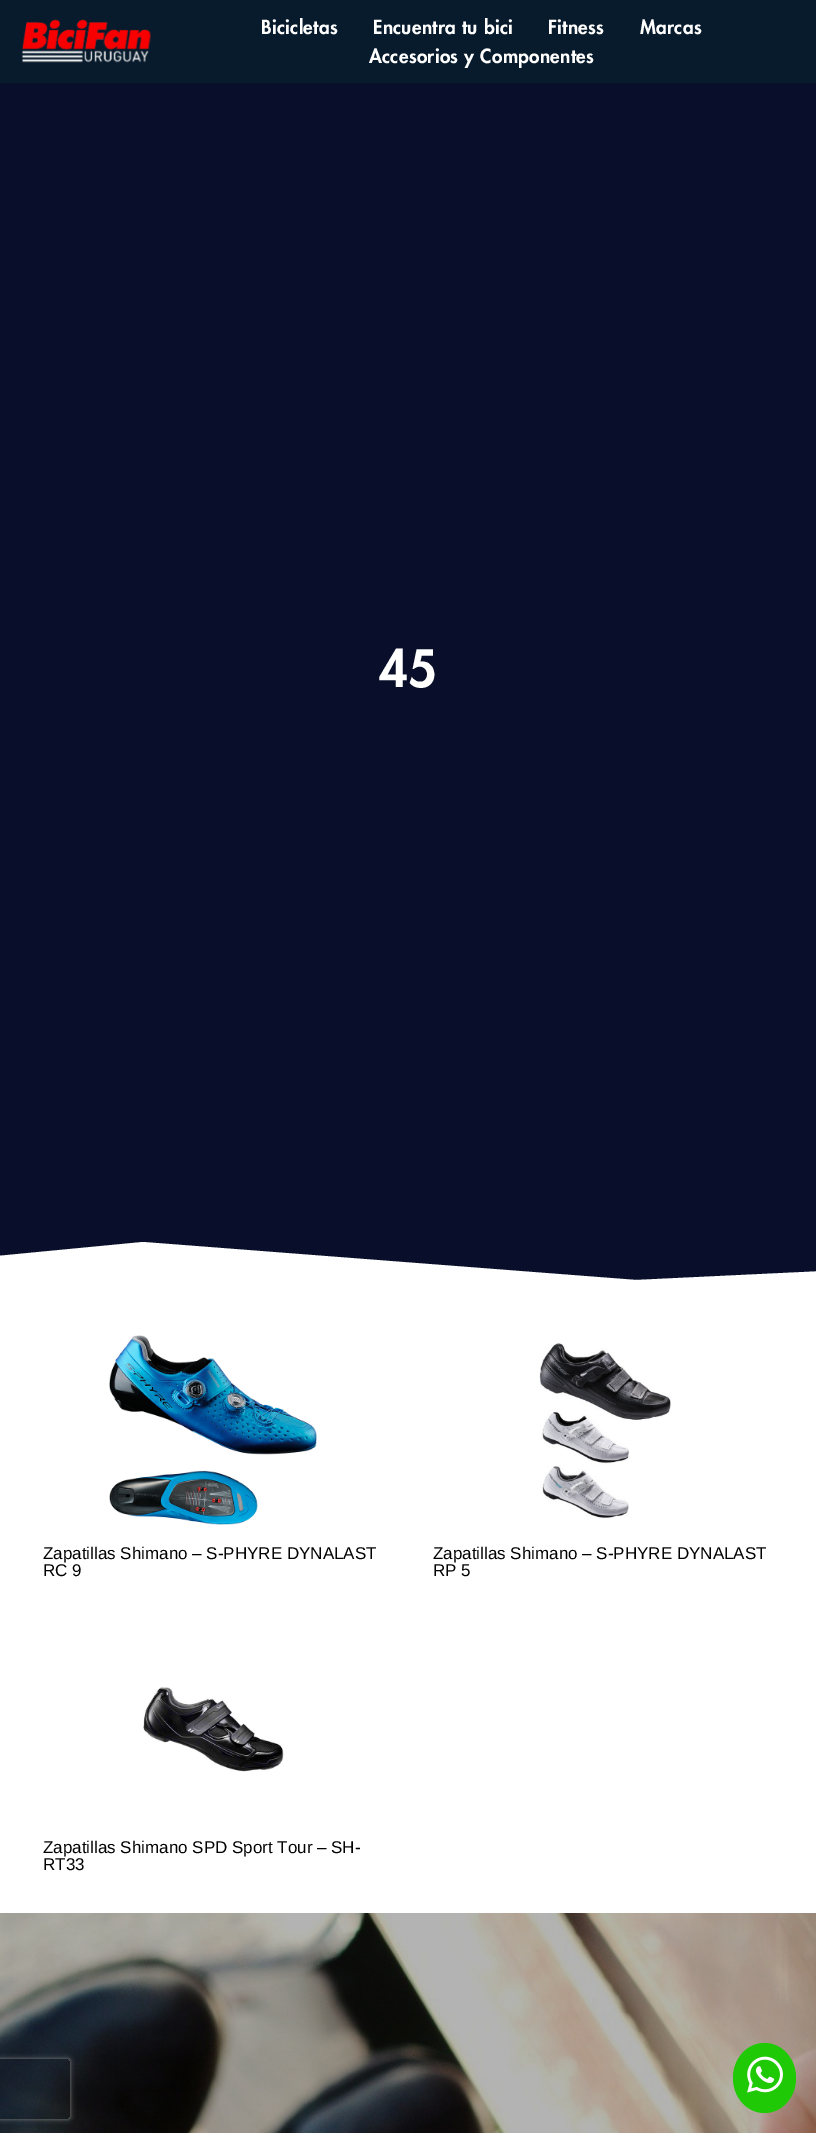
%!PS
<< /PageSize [816 2133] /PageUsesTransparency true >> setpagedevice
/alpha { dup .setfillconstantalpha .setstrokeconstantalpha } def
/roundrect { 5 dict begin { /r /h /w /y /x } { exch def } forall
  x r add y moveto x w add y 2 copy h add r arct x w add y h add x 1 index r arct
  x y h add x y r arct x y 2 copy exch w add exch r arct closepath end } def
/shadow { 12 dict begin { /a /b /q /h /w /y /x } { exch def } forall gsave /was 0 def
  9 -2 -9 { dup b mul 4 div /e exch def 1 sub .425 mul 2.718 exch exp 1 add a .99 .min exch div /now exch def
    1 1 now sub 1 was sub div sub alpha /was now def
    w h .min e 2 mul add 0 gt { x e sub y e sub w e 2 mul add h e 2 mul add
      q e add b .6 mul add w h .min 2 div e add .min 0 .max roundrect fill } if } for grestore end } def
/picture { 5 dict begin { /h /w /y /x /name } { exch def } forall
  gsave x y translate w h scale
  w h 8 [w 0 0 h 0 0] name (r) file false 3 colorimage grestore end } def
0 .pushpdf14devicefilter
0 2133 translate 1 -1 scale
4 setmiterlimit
1 setgray
0 0 816 2133 rectfill
0.031 0.106 0.173 setrgbcolor
0 0 816 83 rectfill
(img1.rgb) 22 19 129 44 picture
/Futura-Black [19 0 0 -19 0 0] selectfont
1 setgray
261 34 moveto 0.3 0 (Bicicletas) ashow
373 34 moveto 0.3 0 (Encuentra tu bici) ashow
548 34 moveto 0.3 0 (Fitness) ashow
640 34 moveto 0.3 0 (Marcas) ashow
369 63 moveto 0.3 0 (Accesorios y Componentes) ashow
0.035 0.059 0.165 setrgbcolor
0 83 816 1197 rectfill
/Futura-Black [50 0 0 -50 0 0] selectfont
1 setgray
379 687 moveto (45) show
newpath 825 1271 moveto 636 1280 lineto 143 1242 lineto -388 1293 lineto -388 1295 lineto 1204 1295 lineto 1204 1293 lineto fill
(img2.rgb) 109 1335 208 190 picture
/LiberationSans-Regular [17 0 0 -17 0 0] selectfont
0 setgray
43 1559 moveto (Zapatillas Shimano – S-PHYRE DYNALAST) show
43 1576 moveto (RC 9) show
(img3.rgb) 539 1343 132 176 picture
433 1559 moveto (Zapatillas Shimano – S-PHYRE DYNALAST) show
433 1576 moveto (RP 5) show
(img4.rgb) 143 1687 141 85 picture
43 1853 moveto (Zapatillas Shimano SPD Sport Tour – SH-) show
43 1870 moveto (RT33) show
(img5.rgb) 0 1913 816 220 picture
gsave
newpath 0 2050 moveto 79 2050 lineto 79 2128 lineto 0 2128 lineto closepath -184 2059 moveto 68 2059 lineto 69 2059 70 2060 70 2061 curveto 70 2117 lineto 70 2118 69 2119 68 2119 curveto -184 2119 lineto -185 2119 -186 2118 -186 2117 curveto -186 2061 lineto -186 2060 -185 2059 -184 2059 curveto closepath eoclip newpath
0.502 setgray
-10 2059 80 60 2 2.5 1 shadow
grestore
0.125 0.788 0.02 setrgbcolor
newpath 764.5 2043 moveto 782 2043 796 2058.5 796 2078 curveto 796 2097.5 782 2113 764.5 2113 curveto 747 2113 733 2097.5 733 2078 curveto 733 2058.5 747 2043 764.5 2043 curveto closepath fill
(img6.rgb) 747 2056 36 37 picture
.poppdf14devicefilter showpage
